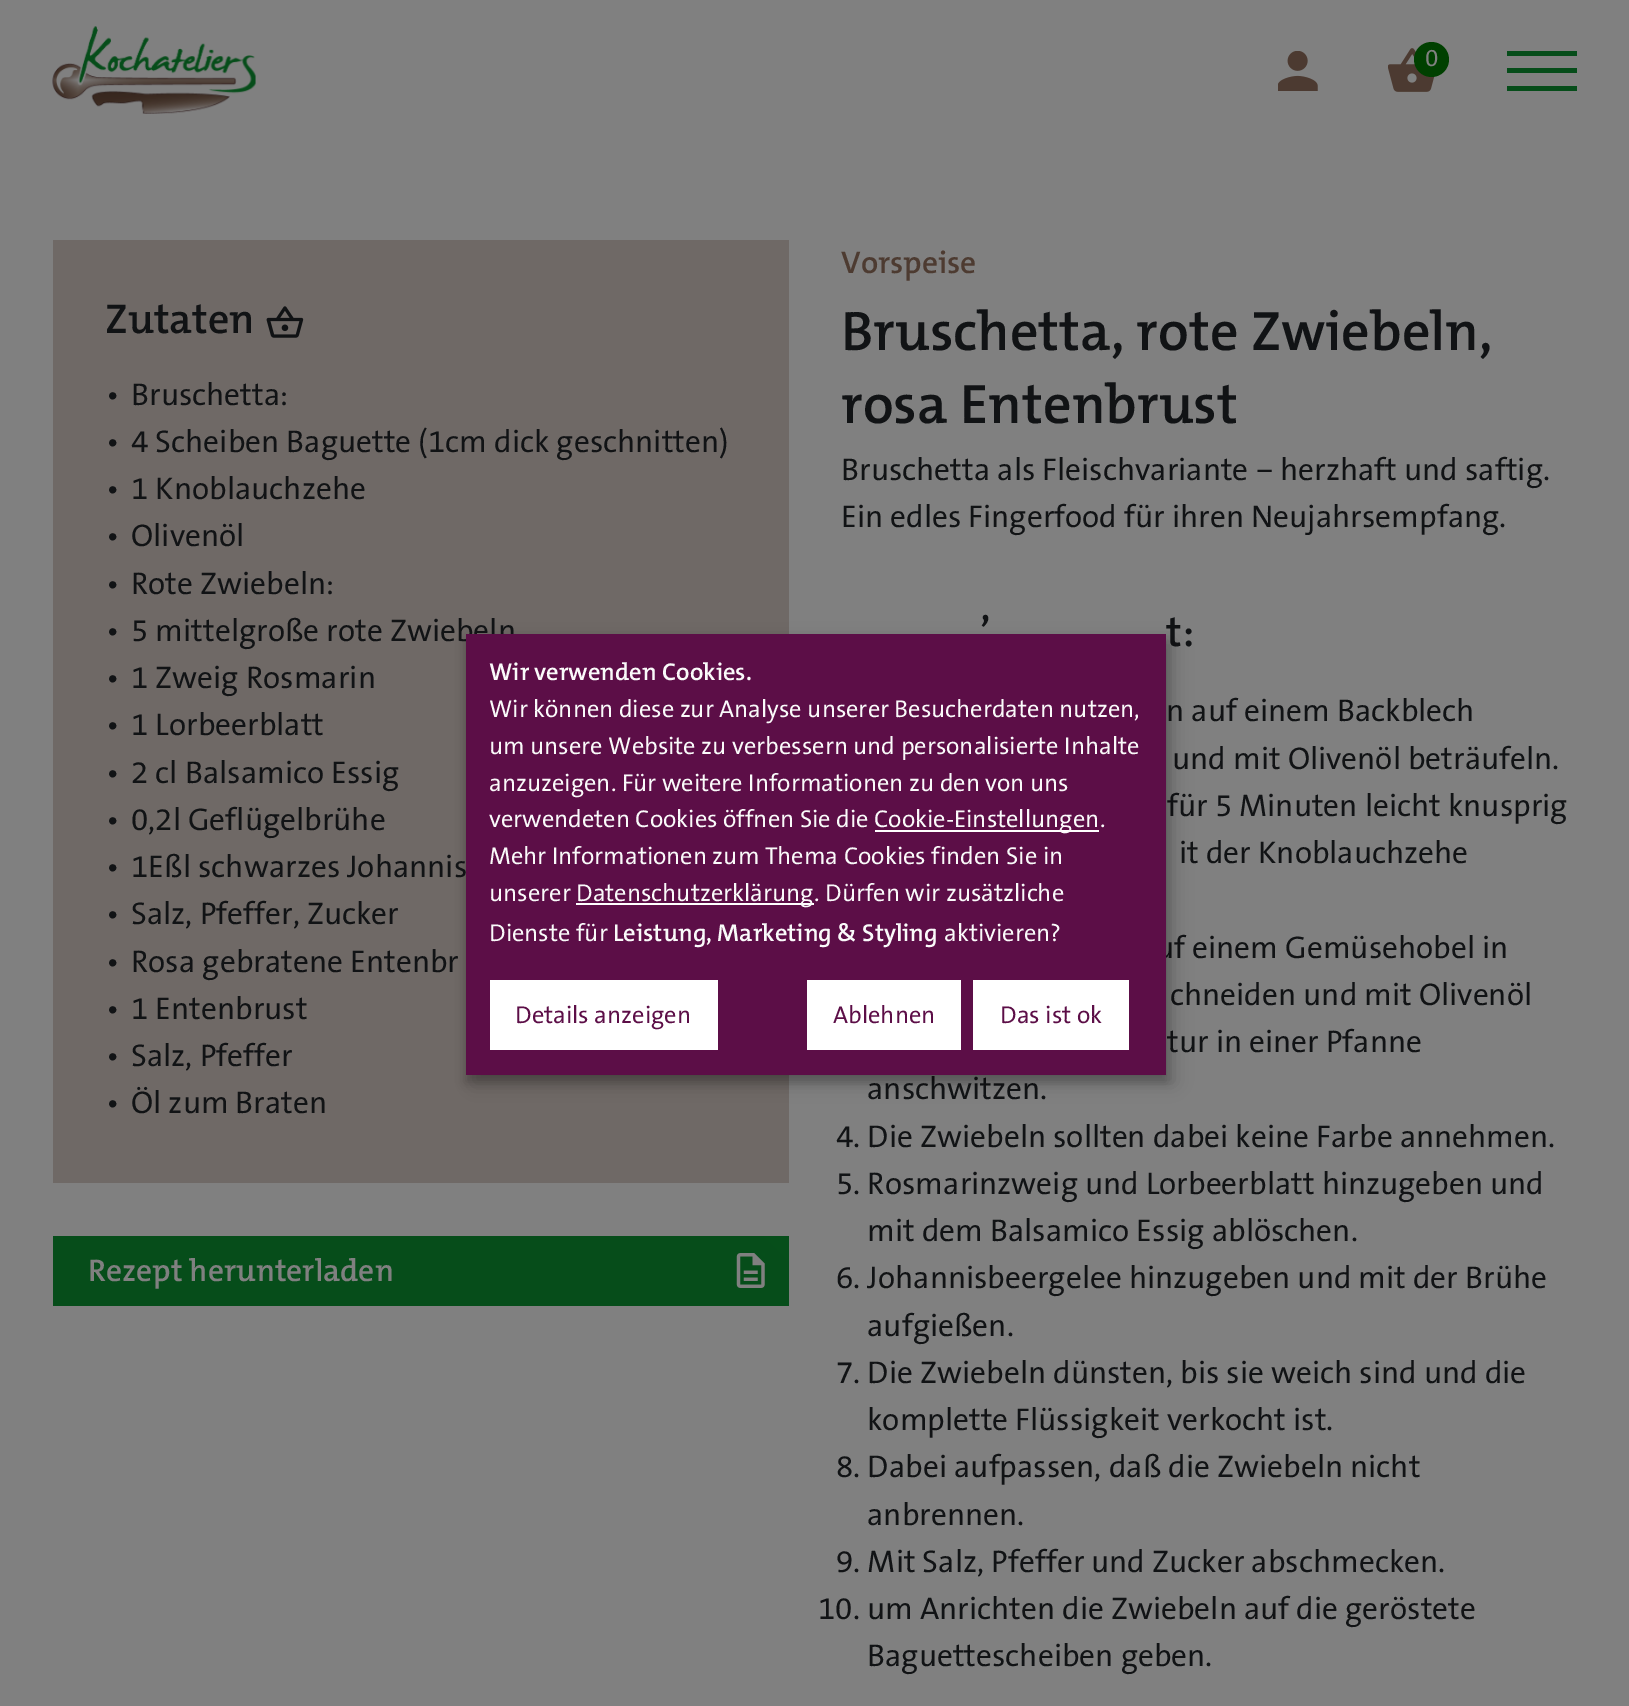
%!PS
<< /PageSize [1629 1706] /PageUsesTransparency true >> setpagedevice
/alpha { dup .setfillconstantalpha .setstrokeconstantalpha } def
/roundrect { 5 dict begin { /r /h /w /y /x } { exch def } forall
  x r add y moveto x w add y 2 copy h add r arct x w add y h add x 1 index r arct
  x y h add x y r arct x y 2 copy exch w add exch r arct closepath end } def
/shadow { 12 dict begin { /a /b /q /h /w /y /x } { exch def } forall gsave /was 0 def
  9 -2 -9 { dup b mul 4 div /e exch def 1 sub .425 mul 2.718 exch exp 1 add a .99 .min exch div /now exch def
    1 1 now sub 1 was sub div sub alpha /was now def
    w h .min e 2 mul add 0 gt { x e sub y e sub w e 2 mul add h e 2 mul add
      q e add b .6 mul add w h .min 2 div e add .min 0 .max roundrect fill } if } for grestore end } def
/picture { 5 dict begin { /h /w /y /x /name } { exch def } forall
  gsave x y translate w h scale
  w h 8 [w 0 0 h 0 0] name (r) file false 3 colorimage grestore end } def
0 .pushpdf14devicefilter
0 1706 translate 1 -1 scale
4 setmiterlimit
0.502 setgray
0 0 1629 1706 rectfill
(img1.rgb) 52 26 204 88 picture
(img2.rgb) 1278 51 40 40 picture
(img3.rgb) 1388 48 47 44 picture
0 0.251 0 setrgbcolor
newpath 1431.5 59.5 17.5 0 360 arc closepath fill
/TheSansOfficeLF-Medium [24.5 0 0 -24.5 0 0] selectfont
0.502 setgray
1425 66 moveto (0) show
0.024 0.302 0.102 setrgbcolor
1507 86 70 5 rectfill
1507 51 70 5 rectfill
1507 68 70 5 rectfill
0.435 0.412 0.4 setrgbcolor
53 240 736 943 rectfill
/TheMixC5-SemiBold [42 0 0 -42 0 0] selectfont
0.067 0.075 0.082 setrgbcolor
105 333 moveto (Zutaten) show
(img4.rgb) 266 306 38 32 picture
/TheSansOfficeLF-Medium [31.5 0 0 -31.5 0 0] selectfont
105 405 moveto (•) show
131 405 moveto (Bruschetta:) show
105 452 moveto (•) show
131 452 moveto (4 Scheiben Baguette \(1cm dick geschnitten\)) show
105 499 moveto (•) show
131 499 moveto (1 Knoblauchzehe) show
105 546 moveto (•) show
131 546 moveto (Olivenöl) show
105 594 moveto (•) show
131 594 moveto (Rote Zwiebeln:) show
105 641 moveto (•) show
131 641 moveto (5 mittelgroße rote Zwiebeln) show
105 688 moveto (•) show
131 688 moveto (1 Zweig Rosmarin) show
105 735 moveto (•) show
131 735 moveto (1 Lorbeerblatt) show
105 783 moveto (•) show
131 783 moveto (2 cl Balsamico Essig) show
105 830 moveto (•) show
131 830 moveto (0,2l Geflügelbrühe) show
105 877 moveto (•) show
131 877 moveto (1Eßl schwarzes Johannis) show
105 924 moveto (•) show
131 924 moveto (Salz, Pfeffer, Zucker) show
105 972 moveto (•) show
131 972 moveto (Rosa gebratene Entenbr) show
105 1019 moveto (•) show
131 1019 moveto (1 Entenbrust) show
105 1066 moveto (•) show
131 1066 moveto (Salz, Pfeffer) show
105 1113 moveto (•) show
131 1113 moveto (Öl zum Braten) show
gsave newpath 53 1236 moveto 789 1236 lineto 789 1306 lineto 53 1306 lineto closepath clip newpath
<< /ShadingType 2 /ColorSpace /DeviceRGB /Coords [772 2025 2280 516] /Extend [true true] /Function << /FunctionType 3 /Domain [0 1] /Functions [<< /FunctionType 2 /Domain [0 1] /C0 [0.024 0.302 0.102] /C1 [0.024 0.302 0.102] /N 1 >> << /FunctionType 2 /Domain [0 1] /C0 [0.024 0.302 0.102] /C1 [0.094 0.42 0.184] /N 1 >> << /FunctionType 2 /Domain [0 1] /C0 [0.094 0.42 0.184] /C1 [0.094 0.42 0.184] /N 1 >>] /Bounds [0.25 0.5] /Encode [0 1 0 1 0 1] >> >> shfill grestore
/TheMixC5-SemiBold [31.5 0 0 -31.5 0 0] selectfont
0.502 setgray
88 1281 moveto (Rezept herunterladen) show
(img5.rgb) 736 1253 29 35 picture
0.302 0.231 0.192 setrgbcolor
841 273 moveto (Vorspeise) show
/TheMixC5-SemiBold [56 0 0 -56 0 0] selectfont
0.067 0.075 0.082 setrgbcolor
841 350 moveto (Bruschetta, rote Zwiebeln,) show
841 423 moveto (rosa Entenbrust) show
/TheSansOfficeLF-Medium [31.5 0 0 -31.5 0 0] selectfont
841 480 moveto (Bruschetta als Fleischvariante – herzhaft und saftig.) show
841 527 moveto (Ein edles Fingerfood für ihren Neujahrsempfang.) show
/TheMixC5-SemiBold [42 0 0 -42 0 0] selectfont
980 646 moveto (’) show
1166 646 moveto (t:) show
/TheSansOfficeLF-Medium [31.5 0 0 -31.5 0 0] selectfont
1166 721 moveto (n auf einem Backblech) show
1172 769 moveto (und mit Olivenöl beträufeln.) show
1167 816 moveto (für 5 Minuten leicht knusprig) show
1179 863 moveto (it der Knoblauchzehe) show
1156 958 moveto (uf einem Gemüsehobel in) show
1170 1005 moveto (chneiden und mit Olivenöl) show
1167 1052 moveto (tur in einer Pfanne) show
867 1099 moveto (anschwitzen.) show
836 1147 moveto (4. Die Zwiebeln sollten dabei keine Farbe annehmen.) show
836 1194 moveto (5. Rosmarinzweig und Lorbeerblatt hinzugeben und) show
867 1241 moveto (mit dem Balsamico Essig ablöschen.) show
836 1288 moveto (6. Johannisbeergelee hinzugeben und mit der Brühe) show
867 1336 moveto (aufgießen.) show
836 1383 moveto (7. Die Zwiebeln dünsten, bis sie weich sind und die) show
867 1430 moveto (komplette Flüssigkeit verkocht ist.) show
836 1477 moveto (8. Dabei aufpassen, daß die Zwiebeln nicht) show
867 1525 moveto (anbrennen.) show
836 1572 moveto (9. Mit Salz, Pfeffer und Zucker abschmecken.) show
818 1619 moveto (10. um Anrichten die Zwiebeln auf die geröstete) show
867 1666 moveto (Baguettescheiben geben.) show
0 setgray
474 642 700 441 0 9 0.19 shadow
466 641 700 441 0 5 0.2 shadow
0.361 0.055 0.278 setrgbcolor
466 634 700 441 rectfill
/TheMixC5-SemiBold [24.5 0 0 -24.5 0 0] selectfont
0.98 setgray
489 680 moveto (Wir verwenden Cookies.) show
/TheSansOfficeLF-Medium [24.5 0 0 -24.5 0 0] selectfont
489 717 moveto (Wir können diese zur Analyse unserer Besucherdaten nutzen,) show
489 754 moveto (um unsere Website zu verbessern und personalisierte Inhalte) show
489 791 moveto (anzuzeigen. Für weitere Informationen zu den von uns) show
489 827 moveto (verwendeten Cookies öffnen Sie die) show
1 setgray
875 830 224 2 rectfill
0.98 setgray
874 827 moveto (Cookie-Einstellungen) show
1100 827 moveto (.) show
489 864 moveto (Mehr Informationen zum Thema Cookies finden Sie in) show
489 901 moveto (unserer) show
1 setgray
576 903 238 2 rectfill
0.98 setgray
576 901 moveto (Datenschutzerklärung) show
814 901 moveto (. Dürfen wir zusätzliche) show
489 941 moveto (Dienste für) show
/TheMixC5-SemiBold [24.5 0 0 -24.5 0 0] selectfont
613 941 moveto (Leistung, Marketing & Styling) show
/TheSansOfficeLF-Medium [24.5 0 0 -24.5 0 0] selectfont
944 941 moveto (aktivieren?) show
1 setgray
490 980 228 70 rectfill
0.361 0.055 0.278 setrgbcolor
515 1023 moveto (Details anzeigen) show
1 setgray
807 980 154 70 rectfill
0.361 0.055 0.278 setrgbcolor
833 1023 moveto (Ablehnen) show
1 setgray
973 980 156 70 rectfill
0.361 0.055 0.278 setrgbcolor
1000 1023 moveto (Das ist ok) show
.poppdf14devicefilter showpage
